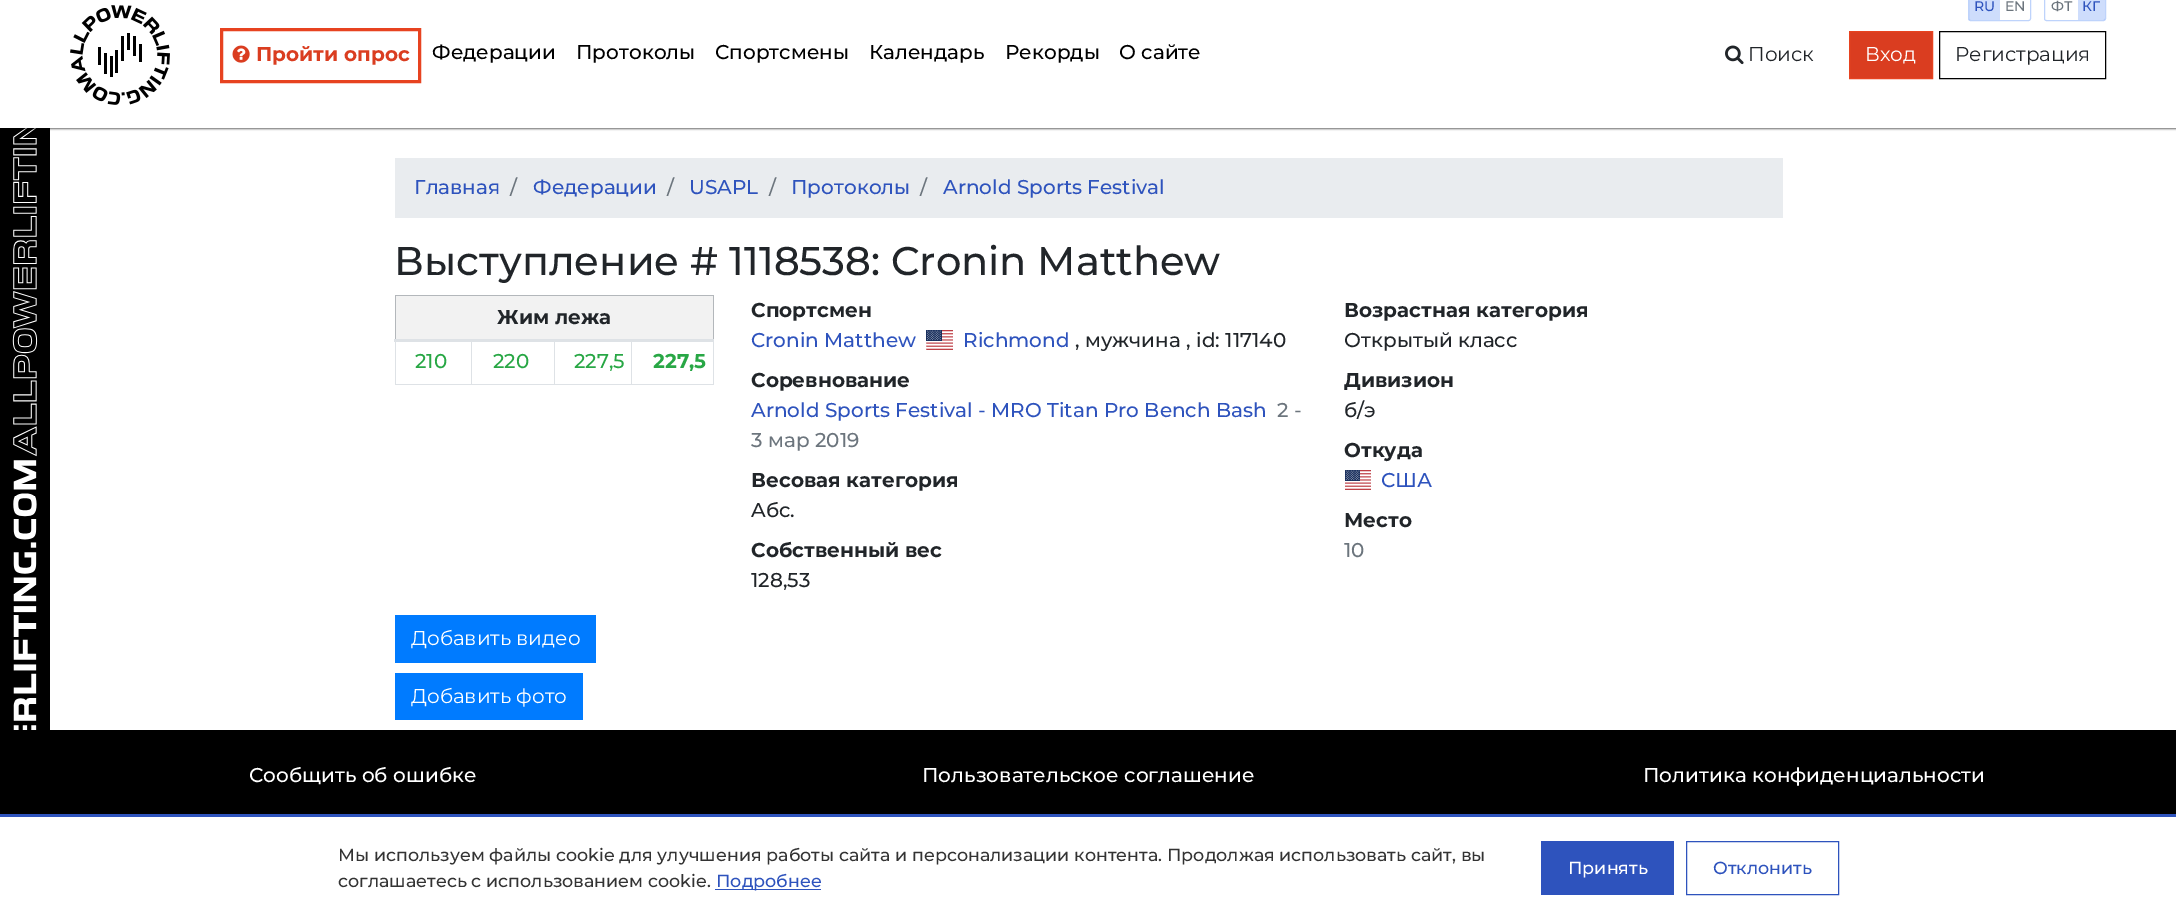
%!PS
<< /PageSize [2176 920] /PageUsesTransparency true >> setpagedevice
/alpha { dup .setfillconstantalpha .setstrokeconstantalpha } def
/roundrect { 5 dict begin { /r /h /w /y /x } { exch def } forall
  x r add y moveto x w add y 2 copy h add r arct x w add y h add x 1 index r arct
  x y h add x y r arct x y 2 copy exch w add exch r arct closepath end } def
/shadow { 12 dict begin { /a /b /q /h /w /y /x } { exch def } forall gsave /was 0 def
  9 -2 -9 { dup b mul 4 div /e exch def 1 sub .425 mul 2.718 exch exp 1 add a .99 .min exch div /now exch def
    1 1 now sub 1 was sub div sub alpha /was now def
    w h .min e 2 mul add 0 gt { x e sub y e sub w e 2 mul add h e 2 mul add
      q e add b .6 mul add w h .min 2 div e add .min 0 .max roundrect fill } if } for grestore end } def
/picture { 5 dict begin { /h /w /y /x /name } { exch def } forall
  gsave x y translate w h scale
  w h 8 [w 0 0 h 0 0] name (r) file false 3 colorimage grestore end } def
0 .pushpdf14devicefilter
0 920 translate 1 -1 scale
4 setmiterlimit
1 setgray
0 0 2176 920 rectfill
0 setgray
0 128 50 602 rectfill
(img4.rgb) 12 128 26 602 picture
-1 -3 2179 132 0 1 0.6 shadow
1 setgray
0 0 2176 128 rectfill
(img1.rgb) 70 5 100 100 picture
0.906 0.263 0.125 setrgbcolor
3 setlinewidth
221.5 29.5 198 52 rectstroke
(img2.rgb) 232 45 18 18 picture
/Montserrat-Bold [20 0 0 -20 0 0] selectfont
0.855 0.239 0.125 setrgbcolor
256 61 moveto (Пройти опрос) show
/Montserrat-Medium [20 0 0 -20 0 0] selectfont
0 setgray
432 59 moveto (Федерации) show
576 59 moveto (Протоколы) show
715 59 moveto (Спортсмены) show
869 59 moveto (Календарь) show
1005 59 moveto (Рекорды) show
1119 59 moveto (О сайте) show
0.745 0.827 0.984 setrgbcolor
1 setlinewidth
1968.5 -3.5 62 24 2 roundrect stroke
0.3 alpha
0.361 0.565 0.961 setrgbcolor
1969 0 31 20 rectfill
/Montserrat-Medium [14 0 0 -14 0 0] selectfont
1 alpha
0.18 0.325 0.741 setrgbcolor
1974 11 moveto (RU) show
0.424 0.459 0.49 setrgbcolor
2005 11 moveto (EN) show
0.745 0.827 0.984 setrgbcolor
2044.5 -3.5 61 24 2 roundrect stroke
0.424 0.459 0.49 setrgbcolor
2051 11 moveto (ФТ) show
0.3 alpha
0.361 0.565 0.961 setrgbcolor
2078 0 27 20 rectfill
1 alpha
0.18 0.325 0.741 setrgbcolor
2082 11 moveto (КГ) show
(img3.rgb) 1725 45 19 20 picture
/Montserrat-Regular [20 0 0 -20 0 0] selectfont
0.129 0.145 0.161 setrgbcolor
1748 61 moveto (Поиск) show
0.855 0.239 0.125 setrgbcolor
newpath 1849.5 31.5 moveto 1932.5 31.5 lineto 1932.5 78.5 lineto 1849.5 78.5 lineto closepath gsave fill grestore
0.906 0.263 0.125 setrgbcolor
stroke
1 setgray
1865 61 moveto (Вход) show
0 setgray
1939.5 31.5 166 47 rectstroke
0.129 0.145 0.161 setrgbcolor
1955 61 moveto (Регистрация) show
0.914 0.925 0.937 setrgbcolor
395 158 1388 60 rectfill
/Montserrat-Medium [20 0 0 -20 0 0] selectfont
0.18 0.325 0.741 setrgbcolor
414 194 moveto (Главная) show
0.424 0.459 0.49 setrgbcolor
510 194 moveto (/) show
0.18 0.325 0.741 setrgbcolor
533 194 moveto (Федерации) show
0.424 0.459 0.49 setrgbcolor
667 194 moveto (/) show
0.18 0.325 0.741 setrgbcolor
689 194 moveto (USAPL) show
0.424 0.459 0.49 setrgbcolor
769 194 moveto (/) show
0.18 0.325 0.741 setrgbcolor
791 194 moveto (Протоколы) show
0.424 0.459 0.49 setrgbcolor
920 194 moveto (/) show
0.18 0.325 0.741 setrgbcolor
943 194 moveto (Arnold Sports Festival) show
/Montserrat-Medium [40 0 0 -40 0 0] selectfont
0.129 0.145 0.161 setrgbcolor
394 275 moveto (Выступление # 1118538: Cronin Matthew) show
0.871 0.886 0.902 setrgbcolor
713 342 1 43 rectfill
395 384 319 1 rectfill
395 342 1 43 rectfill
0.949 setgray
396 296 317 43 rectfill
0.702 0.718 0.733 setrgbcolor
395 295 319 1 rectfill
713 295 1 45 rectfill
395 295 1 45 rectfill
0.871 0.886 0.902 setrgbcolor
471 339 1 46 rectfill
554 339 1 46 rectfill
631 339 1 46 rectfill
394 339 320 3 rectfill
/Montserrat-Bold [20 0 0 -20 0 0] selectfont
0.129 0.145 0.161 setrgbcolor
497 324 moveto (Жим лежа) show
/Montserrat-Medium [20 0 0 -20 0 0] selectfont
0.157 0.655 0.271 setrgbcolor
415 368 moveto (210) show
493 368 moveto (220) show
574 368 moveto (227,5) show
/Montserrat-Bold [20 0 0 -20 0 0] selectfont
653 368 moveto (227,5) show
0.129 0.145 0.161 setrgbcolor
751 317 moveto (Спортсмен) show
/Montserrat-Medium [20 0 0 -20 0 0] selectfont
0.18 0.325 0.741 setrgbcolor
751 347 moveto (Cronin Matthew) show
(img5.rgb) 926 330 27 20 picture
963 347 moveto (Richmond) show
0.129 0.145 0.161 setrgbcolor
1075 347 moveto (, мужчина , id: 117140) show
/Montserrat-Bold [20 0 0 -20 0 0] selectfont
751 387 moveto (Соревнование) show
/Montserrat-Medium [20 0 0 -20 0 0] selectfont
0.18 0.325 0.741 setrgbcolor
751 417 moveto (Arnold Sports Festival - MRO Titan Pro Bench Bash) show
0.424 0.459 0.49 setrgbcolor
1277 417 moveto (2 -) show
751 447 moveto (3 мар 2019) show
/Montserrat-Bold [20 0 0 -20 0 0] selectfont
0.129 0.145 0.161 setrgbcolor
751 487 moveto (Весовая категория) show
/Montserrat-Medium [20 0 0 -20 0 0] selectfont
751 517 moveto (Aбс.) show
/Montserrat-Bold [20 0 0 -20 0 0] selectfont
751 557 moveto (Собственный вес) show
/Montserrat-Medium [20 0 0 -20 0 0] selectfont
751 587 moveto (128,53) show
/Montserrat-Bold [20 0 0 -20 0 0] selectfont
1344 317 moveto (Возрастная категория) show
/Montserrat-Medium [20 0 0 -20 0 0] selectfont
1344 347 moveto (Открытый класс) show
/Montserrat-Bold [20 0 0 -20 0 0] selectfont
1344 387 moveto (Дивизион) show
/Montserrat-Medium [20 0 0 -20 0 0] selectfont
1344 417 moveto (б/э) show
/Montserrat-Bold [20 0 0 -20 0 0] selectfont
1344 457 moveto (Откуда) show
(img6.rgb) 1345 470 26 20 picture
/Montserrat-Medium [20 0 0 -20 0 0] selectfont
0.18 0.325 0.741 setrgbcolor
1381 487 moveto (США) show
/Montserrat-Bold [20 0 0 -20 0 0] selectfont
0.129 0.145 0.161 setrgbcolor
1344 527 moveto (Место) show
/Montserrat-Medium [20 0 0 -20 0 0] selectfont
0.424 0.459 0.49 setrgbcolor
1344 557 moveto (10) show
0 0.482 1 setrgbcolor
395 615 201 48 rectfill
/Montserrat-Regular [20 0 0 -20 0 0] selectfont
1 setgray
411 645 moveto (Добавить видео) show
0 0.482 1 setrgbcolor
395 673 188 47 rectfill
1 setgray
411 703 moveto (Добавить фото) show
0 setgray
0 730 2176 84 rectfill
/Montserrat-Medium [20 0 0 -20 0 0] selectfont
1 setgray
249 782 moveto (Сообщить об ошибке) show
922 782 moveto (Пользовательское соглашение) show
1643 782 moveto (Политика конфиденциальности) show
0.18 0.325 0.741 setrgbcolor
0 814 2176 3 rectfill
/Montserrat-Medium [17.5 0 0 -17.5 0 0] selectfont
0.2 setgray
338 861 moveto (Мы используем файлы cookie для улучшения работы сайта и персонализации контента. Продолжая использовать сайт, вы) show
338 887 moveto (соглашаетесь с использованием cookie.) show
0.18 0.325 0.741 setrgbcolor
715 889 106 1 rectfill
716 887 moveto (Подробнее) show
1541 841 133 54 rectfill
1 setgray
1568 874 moveto (Принять) show
0.18 0.325 0.741 setrgbcolor
1686.5 841.5 152 53 rectstroke
1713 874 moveto (Отклонить) show
.poppdf14devicefilter showpage
